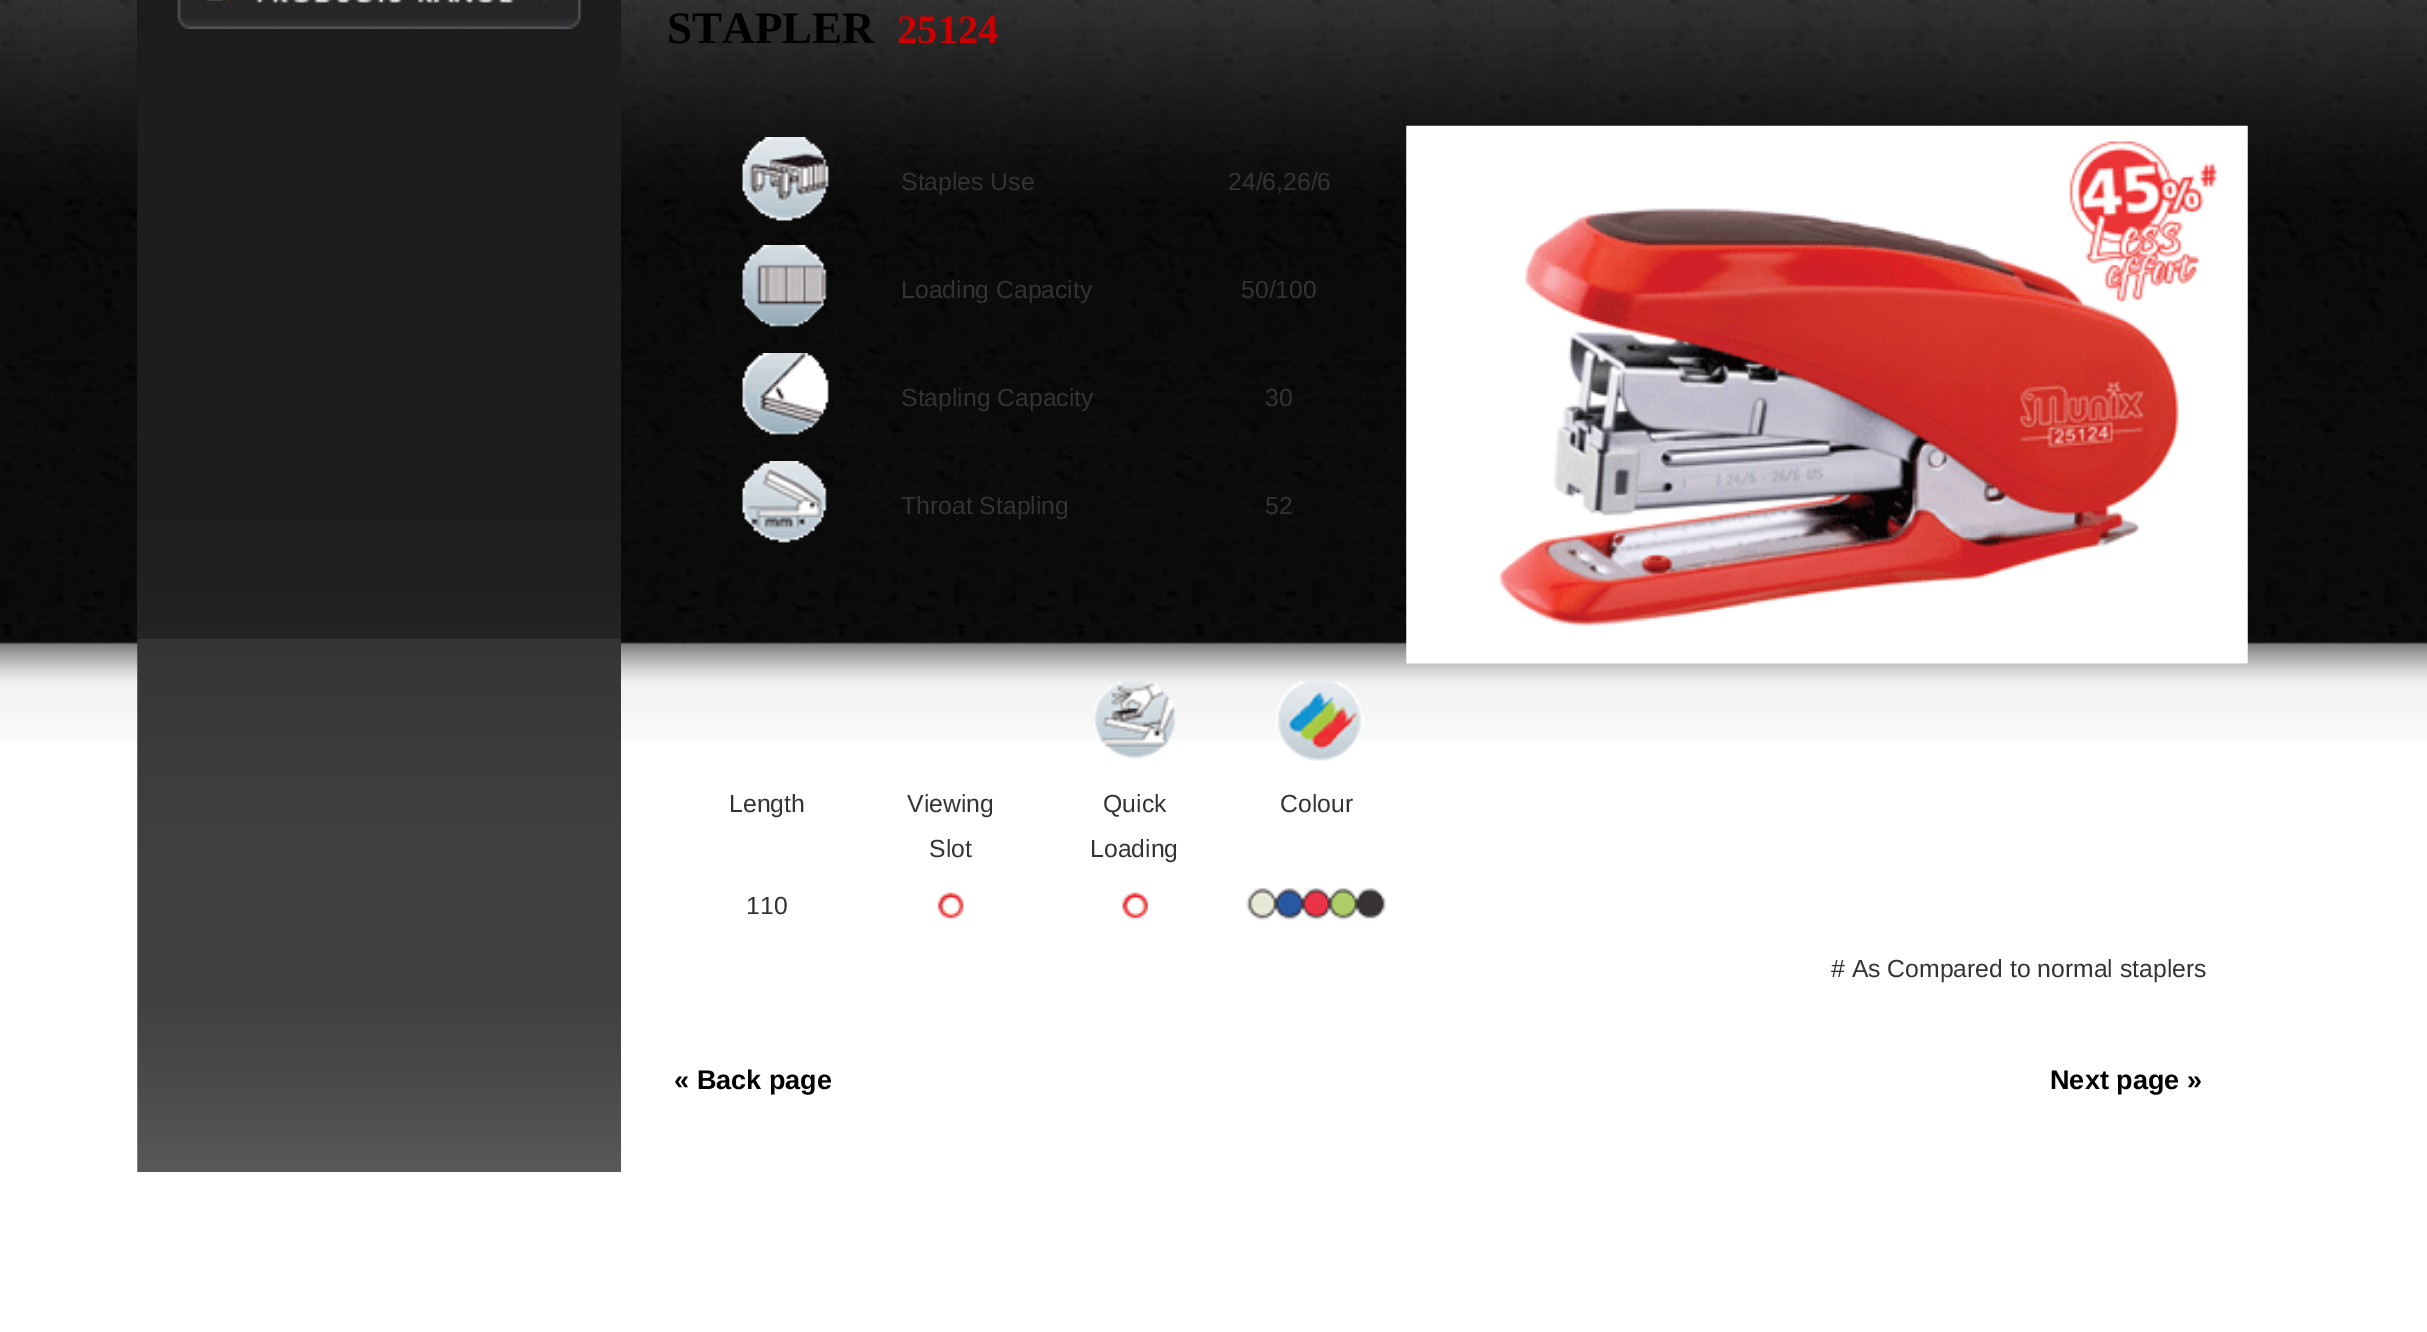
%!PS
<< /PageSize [2427 1332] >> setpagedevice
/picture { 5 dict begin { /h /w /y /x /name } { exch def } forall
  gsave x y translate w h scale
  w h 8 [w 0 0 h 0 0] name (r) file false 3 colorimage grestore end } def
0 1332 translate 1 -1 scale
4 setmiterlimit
1 setgray
0 0 2427 1332 rectfill
(img1.rgb) 0 0 2427 740 picture
(img2.rgb) 137 0 484 1172 picture
(img3.rgb) 137 0 484 29 picture
(img4.rgb) 137 29 484 610 picture
/LiberationSerif-Bold [45 0 0 -45 0 0] selectfont
0 setgray
667 43 moveto (STAPLER) show
/LiberationSerif-Bold [40.5 0 0 -40.5 0 0] selectfont
0.8 0 0 setrgbcolor
897 43 moveto (25124) show
(img5.rgb) 742 137 87 84 picture
/LiberationSans-Regular [24.75 0 0 -24.75 0 0] selectfont
0.2 setgray
901 190 moveto (Staples Use) show
1228 190 moveto (24/6,26/6) show
(img6.rgb) 742 245 85 82 picture
901 298 moveto (Loading Capacity) show
1241 298 moveto (50/100) show
(img7.rgb) 742 353 87 82 picture
901 406 moveto (Stapling Capacity) show
1265 406 moveto (30) show
(img8.rgb) 742 461 85 82 picture
901 514 moveto (Throat Stapling) show
1265 514 moveto (52) show
(img9.rgb) 1406 125 842 539 picture
(img10.rgb) 1093 681 83 78 picture
(img11.rgb) 1276 681 88 80 picture
729 812 moveto (Length) show
907 812 moveto (Viewing) show
929 857 moveto (Slot) show
1103 812 moveto (Quick) show
1090 857 moveto (Loading) show
1280 812 moveto (Colour) show
746 914 moveto (110) show
(img12.rgb) 937 892 27 27 picture
(img13.rgb) 1122 892 27 27 picture
(img14.rgb) 1246 888 140 33 picture
1831 977 moveto (# As Compared to normal staplers) show
/LiberationSans-Bold [27 0 0 -27 0 0] selectfont
0 setgray
674 1089 moveto (« Back page) show
2050 1089 moveto (Next page ») show
showpage
